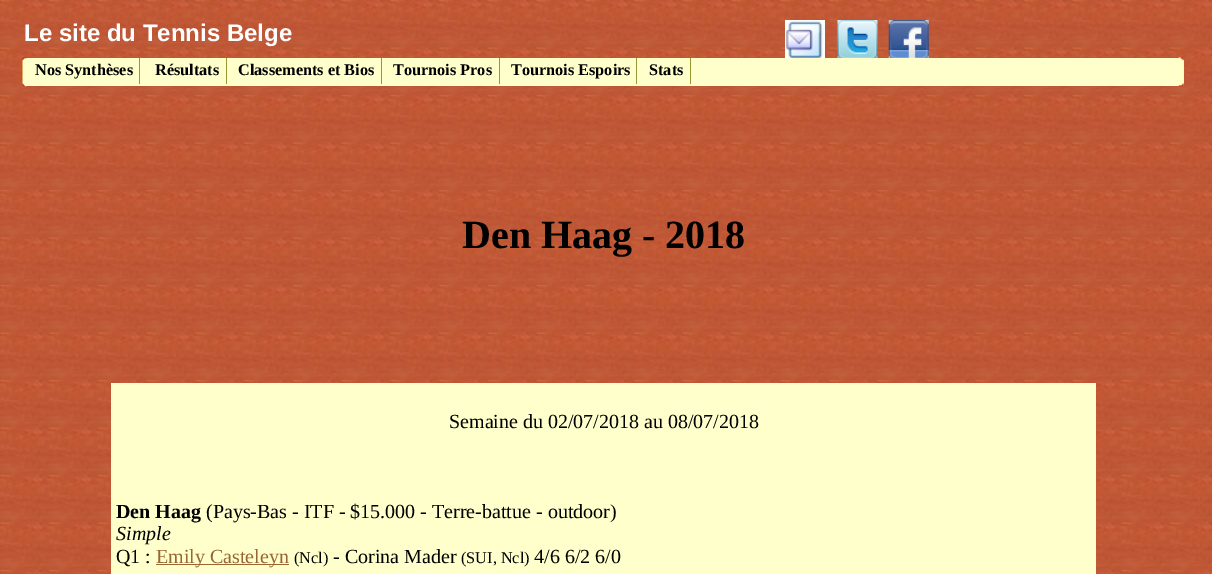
%!PS
<< /PageSize [1212 574] >> setpagedevice
/picture { 5 dict begin { /h /w /y /x /name } { exch def } forall
  gsave x y translate w h scale
  w h 8 [w 0 0 h 0 0] name (r) file false 3 colorimage grestore end } def
0 574 translate 1 -1 scale
4 setmiterlimit
1 setgray
0 0 1212 574 rectfill
(img1.rgb) 0 0 1212 574 picture
/LiberationSans-Bold [24 0 0 -24 0 0] selectfont
24 41 moveto (Le site du Tennis Belge) show
(img2.rgb) 785 20 40 38 picture
(img3.rgb) 837 20 41 38 picture
(img4.rgb) 888 20 41 38 picture
1 1 0.8 setrgbcolor
26 58 1158 28 rectfill
(img5.rgb) 22 57 5 30 picture
/LiberationSerif-Bold [16.25 0 0 -16.25 0 0] selectfont
0 setgray
35 75 moveto (Nos Synthèses) show
0.6 0.6 0.2 setrgbcolor
139 58 1 26 rectfill
0 setgray
155 75 moveto (Résultats) show
0.6 0.6 0.2 setrgbcolor
226 58 1 26 rectfill
0 setgray
238 75 moveto (Classements et Bios) show
0.6 0.6 0.2 setrgbcolor
381 58 1 26 rectfill
0 setgray
393 75 moveto (Tournois Pros) show
0.6 0.6 0.2 setrgbcolor
499 58 1 26 rectfill
0 setgray
511 75 moveto (Tournois Espoirs) show
0.6 0.6 0.2 setrgbcolor
636 58 1 26 rectfill
0 setgray
649 75 moveto (Stats) show
0.6 0.6 0.2 setrgbcolor
690 58 1 26 rectfill
(img6.rgb) 1178 57 6 30 picture
/LiberationSerif-Bold [40 0 0 -40 0 0] selectfont
0 setgray
462 248 moveto (Den Haag - 2018) show
1 1 0.8 setrgbcolor
111 383 985 191 rectfill
/LiberationSerif-Regular [20 0 0 -20 0 0] selectfont
0 setgray
449 428 moveto (Semaine du 02/07/2018 au 08/07/2018) show
/LiberationSerif-Bold [20 0 0 -20 0 0] selectfont
116 518 moveto (Den Haag) show
/LiberationSerif-Regular [20 0 0 -20 0 0] selectfont
206 518 moveto (\(Pays-Bas - ITF - $15.000 - Terre-battue - outdoor\)) show
/LiberationSerif-Italic [20 0 0 -20 0 0] selectfont
116 540 moveto (Simple) show
/LiberationSerif-Regular [20 0 0 -20 0 0] selectfont
116 563 moveto (Q1 :) show
0.6 0.4 0.2 setrgbcolor
156 564 133 1 rectfill
156 563 moveto (Emily Casteleyn) show
/LiberationSerif-Regular [16.25 0 0 -16.25 0 0] selectfont
0 setgray
294 563 moveto (\(Ncl\)) show
/LiberationSerif-Regular [20 0 0 -20 0 0] selectfont
333 563 moveto (- Corina Mader) show
/LiberationSerif-Regular [16.25 0 0 -16.25 0 0] selectfont
461 563 moveto (\(SUI, Ncl\)) show
/LiberationSerif-Regular [20 0 0 -20 0 0] selectfont
534 563 moveto (4/6 6/2 6/0) show
showpage
